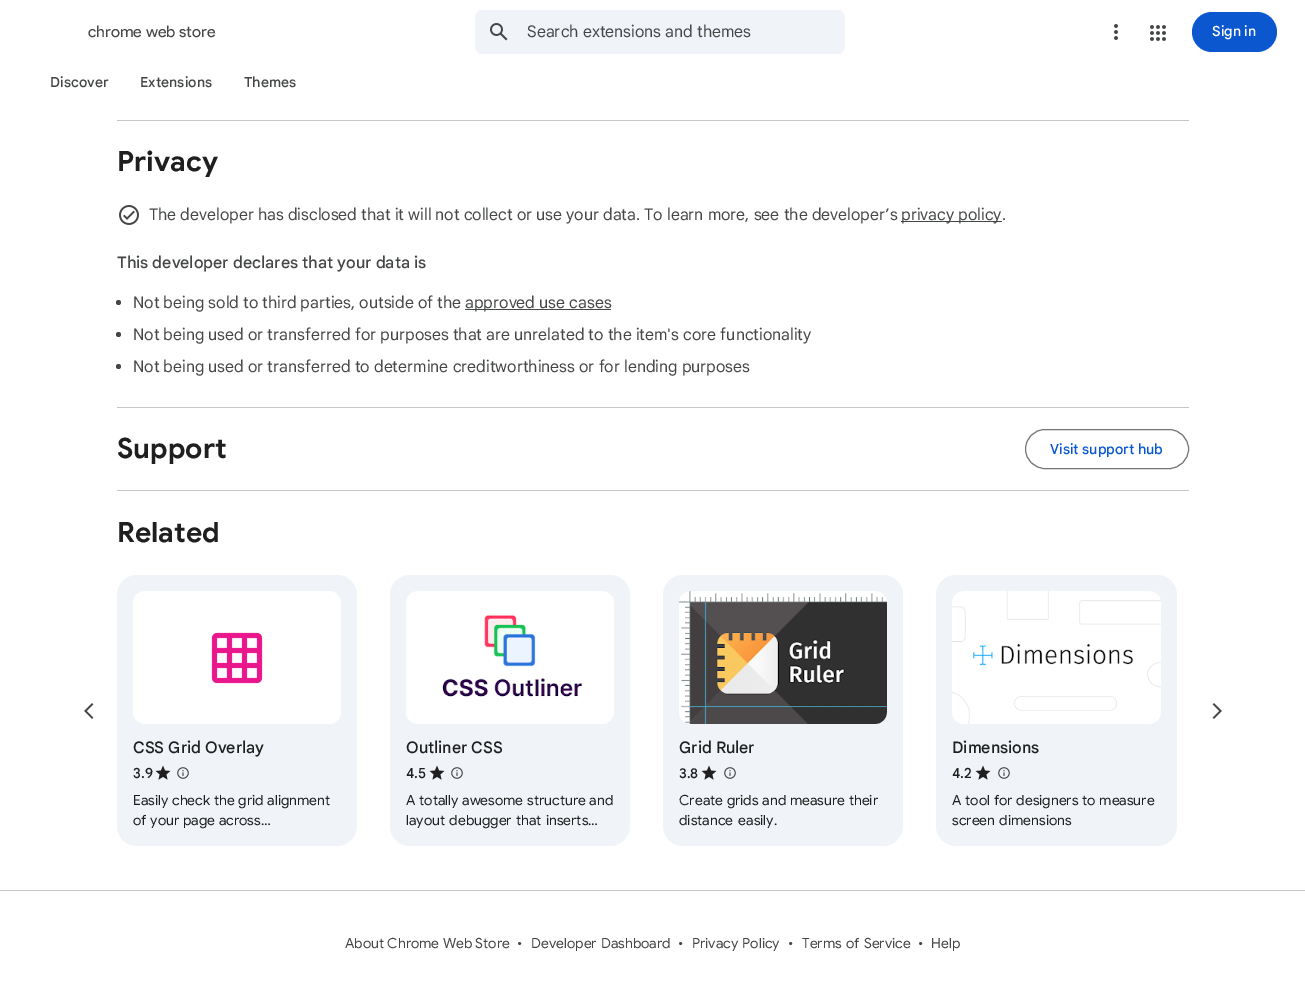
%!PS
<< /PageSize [1305 995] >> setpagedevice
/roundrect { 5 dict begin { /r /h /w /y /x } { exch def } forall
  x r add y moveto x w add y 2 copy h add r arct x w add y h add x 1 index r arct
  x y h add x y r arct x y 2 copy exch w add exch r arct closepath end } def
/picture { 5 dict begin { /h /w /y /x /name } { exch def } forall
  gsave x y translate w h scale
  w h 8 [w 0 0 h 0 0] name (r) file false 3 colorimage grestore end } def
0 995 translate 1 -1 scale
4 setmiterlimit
1 setgray
0 0 1305 995 rectfill
(img1.rgb) 61 21 6 1 picture
/ProductSans-Regular [16 0 0 -16 0 0] selectfont
0.267 0.278 0.275 setrgbcolor
88 37 moveto (chrome web store) show
0.941 0.957 0.976 setrgbcolor
475 10 370 44 8 roundrect fill
(img2.rgb) 490 23 18 18 picture
/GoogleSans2-Regular [16 0 0 -16 0 0] selectfont
0.267 0.278 0.275 setrgbcolor
527 37 moveto (Search extensions and themes) show
(img3.rgb) 1114 24 4 16 picture
(img4.rgb) 1150 25 16 16 picture
0.043 0.341 0.816 setrgbcolor
1192 12 85 40 20 roundrect fill
/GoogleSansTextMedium-Medium [14 0 0 -14 0 0] selectfont
1 setgray
1212 36 moveto (Sign in) show
0.267 0.278 0.275 setrgbcolor
50 87 moveto (Discover) show
140 87 moveto (Extensions) show
244 87 moveto (Themes) show
0.769 0.78 0.773 setrgbcolor
117 120 1072 1 rectfill
117 407 1072 1 rectfill
/GoogleSans-Bold [28 0 0 -28 0 0] selectfont
0.122 setgray
117 171 moveto (Privacy) show
(img5.rgb) 119 205 20 20 picture
/GoogleSans2-Regular [16 0 0 -16 0 0] selectfont
0.267 0.278 0.275 setrgbcolor
149 220 moveto (The developer has disclosed that it will not collect or use your data. To learn more, see the developer’s) show
901 221 101 1 rectfill
901 220 moveto (privacy policy.) show
/GoogleSans-Medium [16 0 0 -16 0 0] selectfont
117 268 moveto (This developer declares that your data is) show
newpath 118.5 302.5 2.5 0 360 arc closepath fill
/GoogleSans2-Regular [16 0 0 -16 0 0] selectfont
133 308 moveto (Not being sold to third parties, outside of the) show
465 309 146 1 rectfill
465 308 moveto (approved use cases) show
newpath 118.5 334.5 2.5 0 360 arc closepath fill
133 340 moveto (Not being used or transferred for purposes that are unrelated to the item's core functionality) show
newpath 118.5 366.5 2.5 0 360 arc closepath fill
133 372 moveto (Not being used or transferred to determine creditworthiness or for lending purposes) show
0.769 0.78 0.773 setrgbcolor
117 490 1072 1 rectfill
/GoogleSans-Bold [28 0 0 -28 0 0] selectfont
0.122 setgray
117 458 moveto (Support) show
0.455 0.467 0.459 setrgbcolor
1025.5 429.5 163 39 19.5 roundrect stroke
/GoogleSansTextMedium-Medium [14 0 0 -14 0 0] selectfont
0.043 0.341 0.816 setrgbcolor
1050 454 moveto (Visit support hub) show
/GoogleSans-Bold [28 0 0 -28 0 0] selectfont
0.122 setgray
117 542 moveto (Related) show
(img6.rgb) 84 703 10 16 picture
(img7.rgb) 1212 703 10 16 picture
0.941 0.957 0.976 setrgbcolor
117 575 240 271 20 roundrect fill
1 setgray
133 591 208 133 12 roundrect fill
(img8.rgb) 211 632 52 52 picture
/GoogleSans-Medium [16 0 0 -16 0 0] selectfont
0.122 setgray
133 753 moveto (CSS Grid Overlay) show
/GoogleSans-Medium [14 0 0 -14 0 0] selectfont
133 778 moveto (3.9) show
(img9.rgb) 155 765 16 15 picture
(img10.rgb) 177 767 12 12 picture
/GoogleSans-Regular [14 0 0 -14 0 0] selectfont
133 805 moveto 0.5 0 32 (Easily check the grid alignment) widthshow
133 825 moveto 0.5 0 32 (of your page across…) widthshow
0.941 0.957 0.976 setrgbcolor
390 575 240 271 20 roundrect fill
(img11.rgb) 406 591 208 133 picture
/GoogleSans-Medium [16 0 0 -16 0 0] selectfont
0.122 setgray
406 753 moveto (Outliner CSS) show
/GoogleSans-Medium [14 0 0 -14 0 0] selectfont
406 778 moveto (4.5) show
(img9.rgb) 429 765 16 15 picture
(img10.rgb) 451 767 12 12 picture
/GoogleSans-Regular [14 0 0 -14 0 0] selectfont
406 805 moveto 0.5 0 32 (A totally awesome structure and) widthshow
406 825 moveto 1 0 32 (layout debugger that inserts…) widthshow
0.941 0.957 0.976 setrgbcolor
663 575 240 271 20 roundrect fill
(img12.rgb) 679 591 208 133 picture
/GoogleSans-Medium [16 0 0 -16 0 0] selectfont
0.122 setgray
679 753 moveto (Grid Ruler) show
/GoogleSans2-Medium [14 0 0 -14 0 0] selectfont
679 778 moveto (3.8) show
(img9.rgb) 701 765 16 15 picture
(img10.rgb) 724 767 12 12 picture
/GoogleSans-Regular [14 0 0 -14 0 0] selectfont
679 805 moveto 0.5 0 32 (Create grids and measure their) widthshow
679 825 moveto 2 0 32 (distance easily.) widthshow
0.941 0.957 0.976 setrgbcolor
936 575 241 271 20 roundrect fill
(img13.rgb) 952 591 209 133 picture
/GoogleSans-Medium [16 0 0 -16 0 0] selectfont
0.122 setgray
952 753 moveto (Dimensions) show
/GoogleSans-Medium [14 0 0 -14 0 0] selectfont
952 778 moveto (4.2) show
(img9.rgb) 975 765 16 15 picture
(img10.rgb) 998 767 12 12 picture
/GoogleSans-Regular [14 0 0 -14 0 0] selectfont
952 805 moveto 0.5 0 32 (A tool for designers to measure) widthshow
952 825 moveto 1 0 32 (screen dimensions) widthshow
0.769 0.78 0.773 setrgbcolor
0 890 1305 1 rectfill
0.267 0.278 0.275 setrgbcolor
345 948 moveto (About Chrome Web Store) show
517 948 moveto (•) show
531 948 moveto 1 0 32 (Developer Dashboard) widthshow
678 948 moveto (•) show
692 948 moveto 1 0 32 (Privacy Policy) widthshow
788 948 moveto (•) show
802 948 moveto 1 0 32 (Terms of Service) widthshow
918 948 moveto (•) show
931 948 moveto (Help) show
showpage
